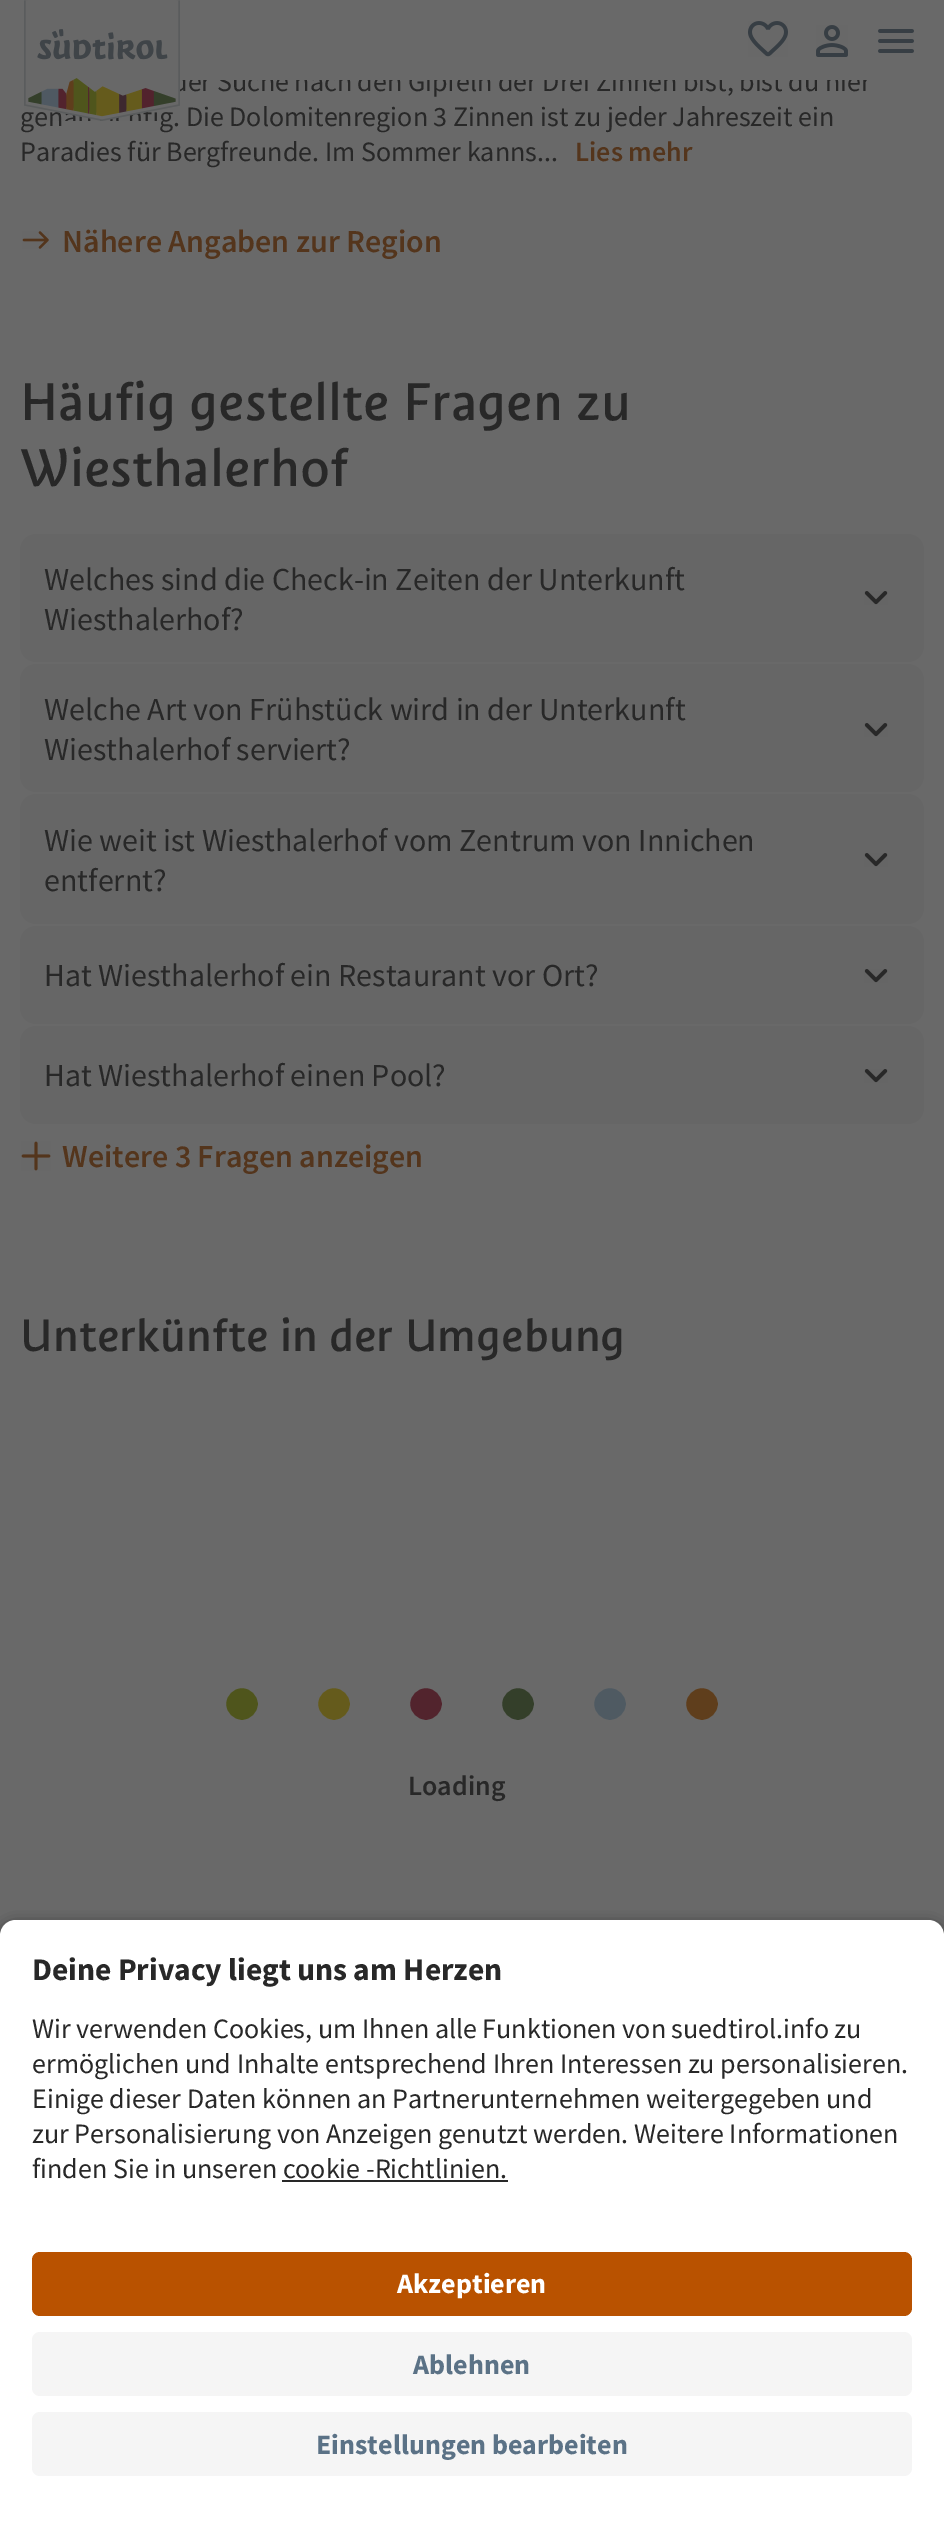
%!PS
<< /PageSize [944 2531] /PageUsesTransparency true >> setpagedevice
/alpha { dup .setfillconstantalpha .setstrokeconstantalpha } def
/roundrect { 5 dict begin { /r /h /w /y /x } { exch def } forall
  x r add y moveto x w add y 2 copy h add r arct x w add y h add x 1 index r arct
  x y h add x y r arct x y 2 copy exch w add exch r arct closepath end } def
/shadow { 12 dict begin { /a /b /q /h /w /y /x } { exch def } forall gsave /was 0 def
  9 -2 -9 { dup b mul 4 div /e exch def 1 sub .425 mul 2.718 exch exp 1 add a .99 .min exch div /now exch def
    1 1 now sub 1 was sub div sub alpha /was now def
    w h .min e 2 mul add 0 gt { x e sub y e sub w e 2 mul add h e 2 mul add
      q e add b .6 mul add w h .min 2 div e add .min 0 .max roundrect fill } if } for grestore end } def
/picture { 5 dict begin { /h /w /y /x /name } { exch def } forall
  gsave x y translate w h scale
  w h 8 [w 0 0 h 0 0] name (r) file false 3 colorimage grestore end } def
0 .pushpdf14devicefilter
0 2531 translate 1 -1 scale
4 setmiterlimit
0.412 setgray
0 0 944 2531 rectfill
/SourceSansPro-Regular [28 0 0 -28 0 0] selectfont
0.157 setgray
172 91 moveto (der Suche nach den Gipfeln der Drei Zinnen bist, bist du hier) show
0.412 setgray
174 70 697 10 rectfill
0.157 setgray
20 126 moveto (gen) show
159 126 moveto (g. Die Dolomitenregion 3 Zinnen ist zu jeder Jahreszeit ein) show
(img1.rgb) 24 0 156 121 picture
(img2.rgb) 748 21 40 36 picture
(img3.rgb) 816 25 32 32 picture
(img4.rgb) 878 29 36 24 picture
20 161 moveto (Paradies für Bergfreunde. Im Sommer kanns...) show
/SourceSansPro-SemiBold [28 0 0 -28 0 0] selectfont
0.329 0.208 0.11 setrgbcolor
575 161 moveto (Lies mehr) show
(img5.rgb) 22 231 27 18 picture
/SourceSansPro-SemiBold [32 0 0 -32 0 0] selectfont
62 252 moveto (Nähere Angaben zur Region) show
/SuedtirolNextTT-Regular [56 0 0 -56 0 0] selectfont
0.157 setgray
20 420 moveto (Häufig gestellte Fragen zu) show
20 486 moveto (Wiesthalerhof) show
0.4 setgray
20 534 904 128 16 roundrect fill
/SourceSansPro-Regular [32 0 0 -32 0 0] selectfont
0.157 setgray
44 590 moveto (Welches sind die Check-in Zeiten der Unterkunft) show
44 630 moveto (Wiesthalerhof?) show
(img6.rgb) 864 591 24 14 picture
0.4 setgray
20 664 904 128 16 roundrect fill
0.157 setgray
44 720 moveto (Welche Art von Frühstück wird in der Unterkunft) show
44 760 moveto (Wiesthalerhof serviert?) show
(img6.rgb) 864 723 24 14 picture
0.4 setgray
20 794 904 130 16 roundrect fill
0.157 setgray
44 851 moveto (Wie weit ist Wiesthalerhof vom Zentrum von Innichen) show
44 891 moveto (entfernt?) show
(img6.rgb) 864 853 24 14 picture
0.4 setgray
20 926 904 98 16 roundrect fill
0.157 setgray
44 986 moveto (Hat Wiesthalerhof ein Restaurant vor Ort?) show
(img6.rgb) 864 969 24 14 picture
0.4 setgray
20 1026 904 98 16 roundrect fill
0.157 setgray
44 1086 moveto (Hat Wiesthalerhof einen Pool?) show
(img6.rgb) 864 1069 24 14 picture
(img7.rgb) 21 1141 30 30 picture
/SourceSansPro-SemiBold [32 0 0 -32 0 0] selectfont
0.329 0.208 0.11 setrgbcolor
62 1167 moveto (Weitere 3 Fragen anzeigen) show
/SuedtirolNextTT-Regular [48 0 0 -48 0 0] selectfont
0.157 setgray
20 1351 moveto (Unterkünfte in der Umgebung) show
0.31 0.333 0.11 setrgbcolor
newpath 242 1704 18 0 360 arc closepath gsave fill grestore
0.412 setgray
4 setlinewidth
stroke
0.396 0.357 0.11 setrgbcolor
newpath 334 1704 18 0 360 arc closepath gsave fill grestore
0.412 setgray
stroke
0.322 0.141 0.176 setrgbcolor
newpath 426 1704 18 0 360 arc closepath gsave fill grestore
0.412 setgray
stroke
0.204 0.247 0.165 setrgbcolor
newpath 518 1704 18 0 360 arc closepath gsave fill grestore
0.412 setgray
stroke
0.31 0.353 0.384 setrgbcolor
newpath 610 1704 18 0 360 arc closepath gsave fill grestore
0.412 setgray
stroke
0.373 0.243 0.11 setrgbcolor
newpath 702 1704 18 0 360 arc closepath gsave fill grestore
0.412 setgray
stroke
/SourceSansPro-SemiBold [28 0 0 -28 0 0] selectfont
0.157 setgray
408 1795 moveto (Loading) show
0 setgray
0 1926 944 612 16 7 0.8 shadow
1 setgray
newpath 16 1920 moveto 928 1920 lineto 937 1920 944 1927 944 1936 curveto 944 2228 lineto 0 2228 lineto 0 1936 lineto 0 1927 7 1920 16 1920 curveto closepath fill
/SourceSansPro-Bold [31.5 0 0 -31.5 0 0] selectfont
0.157 setgray
32 1980 moveto (Deine Privacy liegt uns am Herzen) show
/SourceSansPro-Regular [28 0 0 -28 0 0] selectfont
32 2038 moveto (Wir verwenden Cookies, um Ihnen alle Funktionen von suedtirol.info zu) show
32 2073 moveto (ermöglichen und Inhalte entsprechend Ihren Interessen zu personalisieren.) show
32 2108 moveto (Einige dieser Daten können an Partnerunternehmen weitergegeben und) show
32 2143 moveto (zur Personalisierung von Anzeigen genutzt werden. Weitere Informationen) show
32 2178 moveto (finden Sie in unseren cookie -Richtlinien.) show
282 2180 226 2 rectfill
1 setgray
0 2228 944 303 rectfill
0.725 0.322 0 setrgbcolor
32 2252 880 64 8 roundrect fill
/SourceSansPro-Bold [28 0 0 -28 0 0] selectfont
1 setgray
397 2293 moveto (Akzeptieren) show
0.961 setgray
32 2332 880 64 8 roundrect fill
0.357 0.447 0.525 setrgbcolor
413 2374 moveto (Ablehnen) show
0.961 setgray
32 2412 880 64 8 roundrect fill
0.357 0.447 0.525 setrgbcolor
316 2454 moveto (Einstellungen bearbeiten) show
.poppdf14devicefilter showpage
